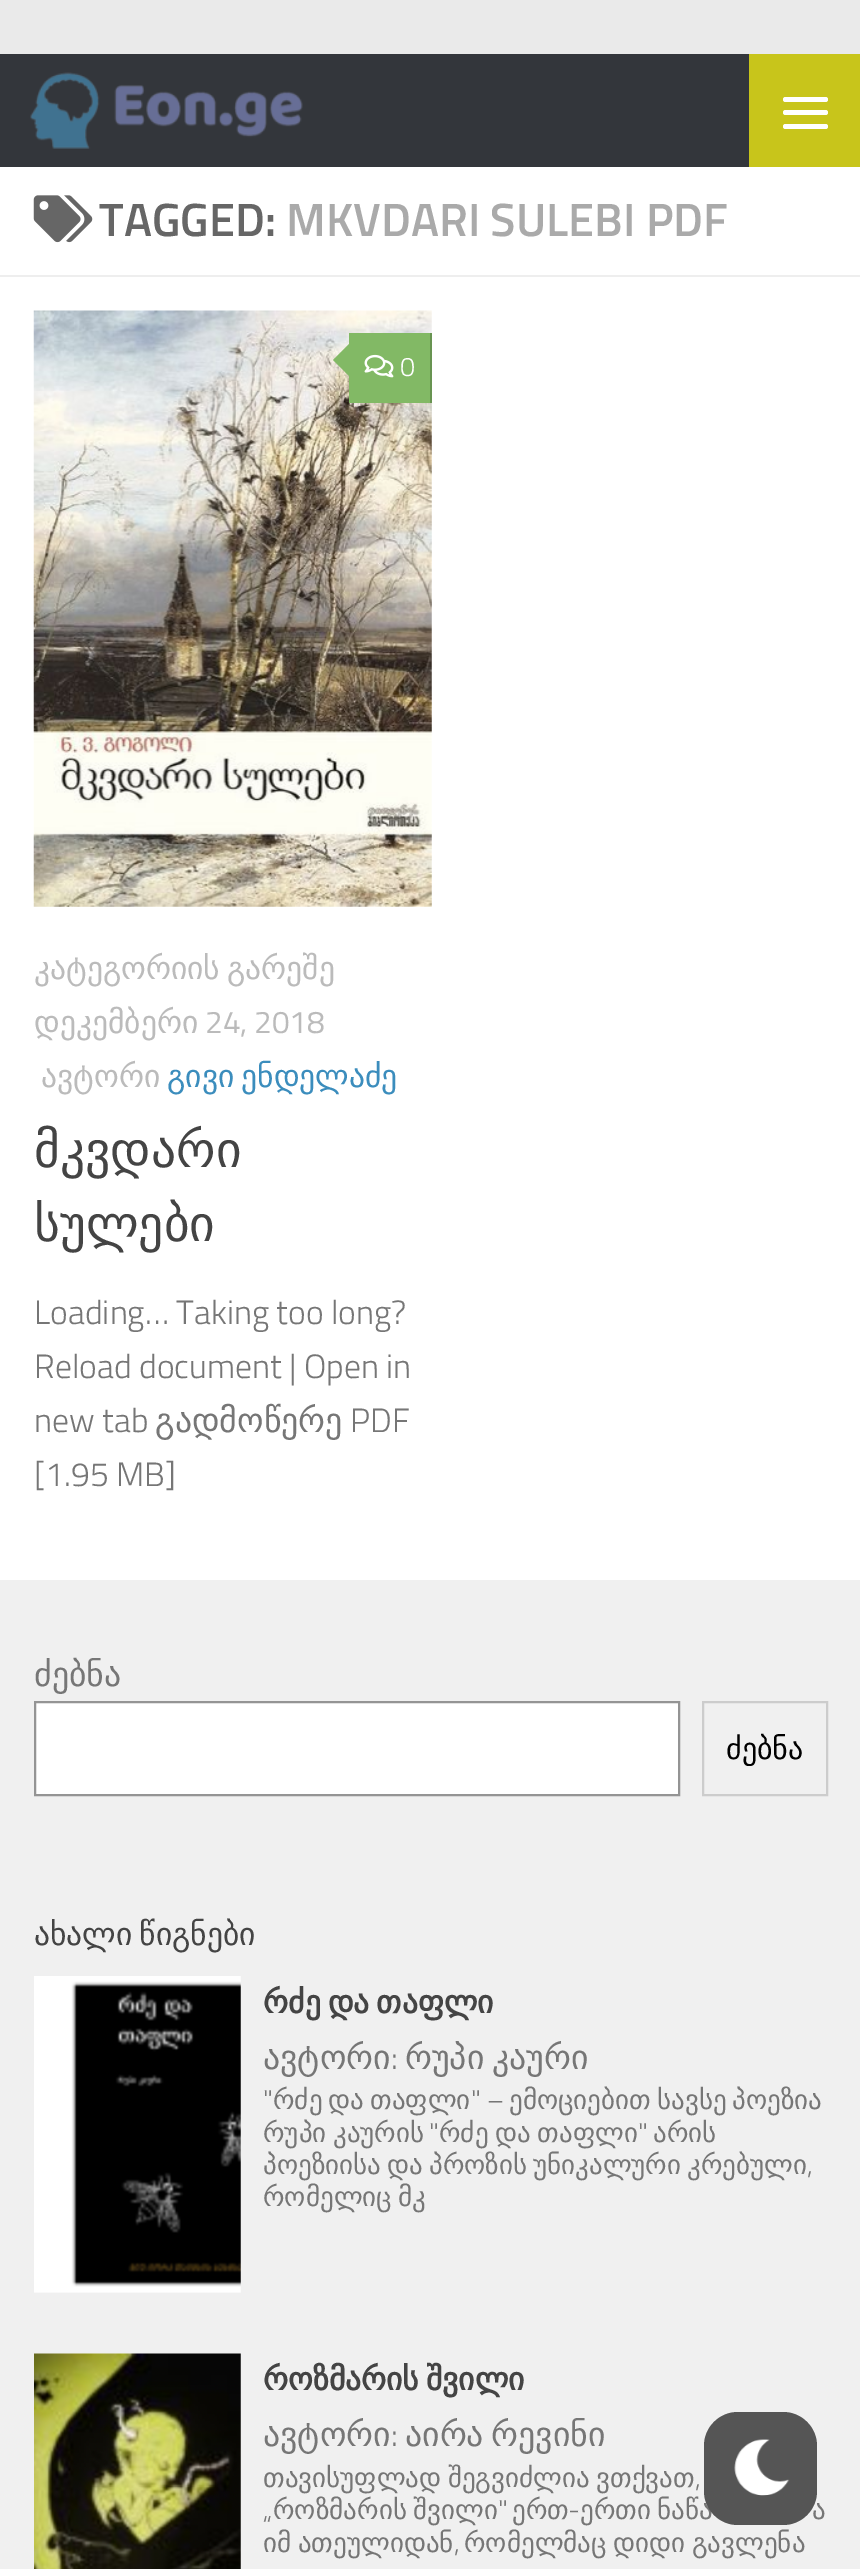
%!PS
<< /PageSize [860 2569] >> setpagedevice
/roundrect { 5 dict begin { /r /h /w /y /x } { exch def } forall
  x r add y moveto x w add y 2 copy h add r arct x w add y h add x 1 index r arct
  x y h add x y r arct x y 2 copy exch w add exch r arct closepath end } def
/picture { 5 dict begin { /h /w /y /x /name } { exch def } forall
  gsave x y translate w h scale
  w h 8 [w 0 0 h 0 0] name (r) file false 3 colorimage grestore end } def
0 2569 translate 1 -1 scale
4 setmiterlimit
0.918 setgray
0 0 860 2569 rectfill
0.2 0.212 0.231 setrgbcolor
0 54 749 113 rectfill
(img1.rgb) 30 72 273 77 picture
0.784 0.773 0.106 setrgbcolor
749 54 111 113 rectfill
1 setgray
783 97 45 5 2.5 roundrect fill
783 110 45 5 2.5 roundrect fill
783 124 45 5 2.5 roundrect fill
0 167 860 1413 rectfill
0.933 setgray
0 275 860 2 rectfill
(img2.rgb) 33 195 60 48 picture
/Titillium-SemiBold [46.75 0 0 -46.75 0 0] selectfont
0.4 setgray
99 236 moveto (TAGGED:) show
0.667 setgray
286 236 moveto (MKVDARI SULEBI PDF) show
(img3.rgb) 33 310 399 597 picture
0.51 0.725 0.396 setrgbcolor
349 333 81 70 rectfill
0.408 0.58 0.318 setrgbcolor
430 333 2 70 rectfill
0.51 0.725 0.396 setrgbcolor
newpath 353 340 moveto 353 380 lineto 333 360 lineto closepath fill
(img4.rgb) 364 354 30 24 picture
/Titillium-Light [27 0 0 -27 0 0] selectfont
1 setgray
400 376 moveto (0) show
/DejaVuSans-Regular [31.5 0 0 -31.5 0 0] selectfont
0.733 setgray
34 979 moveto -3 0 32 (კატეგორიის გარეშე) widthshow
34 1033 moveto (დეკემბერი) show
/Titillium-Regular [31.5 0 0 -31.5 0 0] selectfont
205 1033 moveto (24, 2018) show
/DejaVuSans-Regular [31.5 0 0 -31.5 0 0] selectfont
41 1087 moveto (ავტორი) show
0.231 0.553 0.741 setrgbcolor
167 1087 moveto -3 0 32 (გივი ენდელაძე) widthshow
/DejaVuSans-Regular [49.5 0 0 -49.5 0 0] selectfont
0.267 setgray
34 1167 moveto (მკვდარი) show
34 1241 moveto (სულები) show
/Titillium-Light [33.75 0 0 -33.75 0 0] selectfont
0.463 setgray
34 1324 moveto (Loading… Taking too long?) show
34 1378 moveto (Reload document | Open in) show
34 1432 moveto (new tab) show
/DejaVuSans-Regular [33.75 0 0 -33.75 0 0] selectfont
155 1432 moveto (გადმოწერე) show
/Titillium-Light [33.75 0 0 -33.75 0 0] selectfont
350 1432 moveto (PDF) show
34 1486 moveto ([1.95 MB]) show
0.941 setgray
0 1580 860 989 rectfill
/DejaVuSans-Regular [33.75 0 0 -33.75 0 0] selectfont
0.463 setgray
34 1686 moveto (ძებნა) show
1 setgray
newpath 35 1702 moveto 679 1702 lineto 679 1795 lineto 35 1795 lineto closepath gsave fill grestore
0.58 setgray
2 setlinewidth
stroke
0.8 setgray
703 1702 124 93 rectstroke
/DejaVuSans-Regular [30 0 0 -30 0 0] selectfont
0 setgray
726 1759 moveto (ძებნა) show
/DejaVuSans-Regular [31.5 0 0 -31.5 0 0] selectfont
0.267 setgray
34 1945 moveto -3 0 32 (ახალი წიგნები) widthshow
(img5.rgb) 34 1976 207 317 picture
/DejaVuSans-Bold [31.5 0 0 -31.5 0 0] selectfont
263 2013 moveto -3 0 32 (რძე და თაფლი) widthshow
/DejaVuSans-Regular [33.75 0 0 -33.75 0 0] selectfont
0.463 setgray
263 2069 moveto (ავტორი) show
/Titillium-Light [33.75 0 0 -33.75 0 0] selectfont
391 2069 moveto (:) show
/DejaVuSans-Regular [33.75 0 0 -33.75 0 0] selectfont
405 2069 moveto -3 0 32 (რუპი კაური) widthshow
/Titillium-Light [27 0 0 -27 0 0] selectfont
263 2109 moveto (") show
/DejaVuSans-Regular [27 0 0 -27 0 0] selectfont
273 2109 moveto (რძე) show
328 2109 moveto (და) show
370 2109 moveto (თაფლი) show
/Titillium-Light [27 0 0 -27 0 0] selectfont
471 2109 moveto (" –) show
/DejaVuSans-Regular [27 0 0 -27 0 0] selectfont
509 2109 moveto (ემოციებით) show
657 2109 moveto (სავსე) show
732 2109 moveto (პოეზია) show
263 2142 moveto -2 0 32 (რუპი კაურის) widthshow
/Titillium-Light [27 0 0 -27 0 0] selectfont
429 2142 moveto (") show
/DejaVuSans-Regular [27 0 0 -27 0 0] selectfont
439 2142 moveto -2 0 32 (რძე და თაფლი) widthshow
/Titillium-Light [27 0 0 -27 0 0] selectfont
638 2142 moveto (") show
/DejaVuSans-Regular [27 0 0 -27 0 0] selectfont
653 2142 moveto (არის) show
263 2174 moveto -2.5 0 32 (პოეზიისა და პროზის უნიკალური კრებული) widthshow
/Titillium-Light [27 0 0 -27 0 0] selectfont
807 2174 moveto (,) show
/DejaVuSans-Regular [27 0 0 -27 0 0] selectfont
263 2206 moveto -2.5 0 32 (რომელიც მკ) widthshow
(img6.rgb) 34 2353 207 216 picture
/DejaVuSans-Bold [31.5 0 0 -31.5 0 0] selectfont
0.267 setgray
263 2390 moveto -3 0 32 (როზმარის შვილი) widthshow
/DejaVuSans-Regular [33.75 0 0 -33.75 0 0] selectfont
0.463 setgray
263 2446 moveto (ავტორი) show
/Titillium-Light [33.75 0 0 -33.75 0 0] selectfont
391 2446 moveto (:) show
/DejaVuSans-Regular [33.75 0 0 -33.75 0 0] selectfont
405 2446 moveto -3 0 32 (აირა რევინი) widthshow
/DejaVuSans-Regular [27 0 0 -27 0 0] selectfont
263 2487 moveto -2 0 32 (თავისუფლად შეგვიძლია ვთქვათ) widthshow
/Titillium-Light [27 0 0 -27 0 0] selectfont
695 2487 moveto (,) show
/DejaVuSans-Regular [27 0 0 -27 0 0] selectfont
273 2519 moveto -2 0 32 (როზმარის შვილი) widthshow
/Titillium-Light [27 0 0 -27 0 0] selectfont
498 2519 moveto (") show
/DejaVuSans-Regular [27 0 0 -27 0 0] selectfont
512 2519 moveto (ერთ) show
/Titillium-Light [27 0 0 -27 0 0] selectfont
568 2519 moveto (-) show
/DejaVuSans-Regular [27 0 0 -27 0 0] selectfont
580 2519 moveto -2 0 32 (ერთი ნაწა) widthshow
812 2519 moveto -2 0 32 (ა) widthshow
/Titillium-Light [27 0 0 -27 0 0] selectfont
263 2519 moveto („) show
/DejaVuSans-Regular [27 0 0 -27 0 0] selectfont
263 2552 moveto -2 0 32 (იმ ათეულიდან) widthshow
/Titillium-Light [27 0 0 -27 0 0] selectfont
454 2552 moveto (,) show
/DejaVuSans-Regular [27 0 0 -27 0 0] selectfont
464 2552 moveto -2 0 32 (რომელმაც დიდი გავლენა) widthshow
0.333 setgray
704 2412 113 113 34 roundrect fill
(img7.rgb) 734 2439 56 57 picture
showpage
